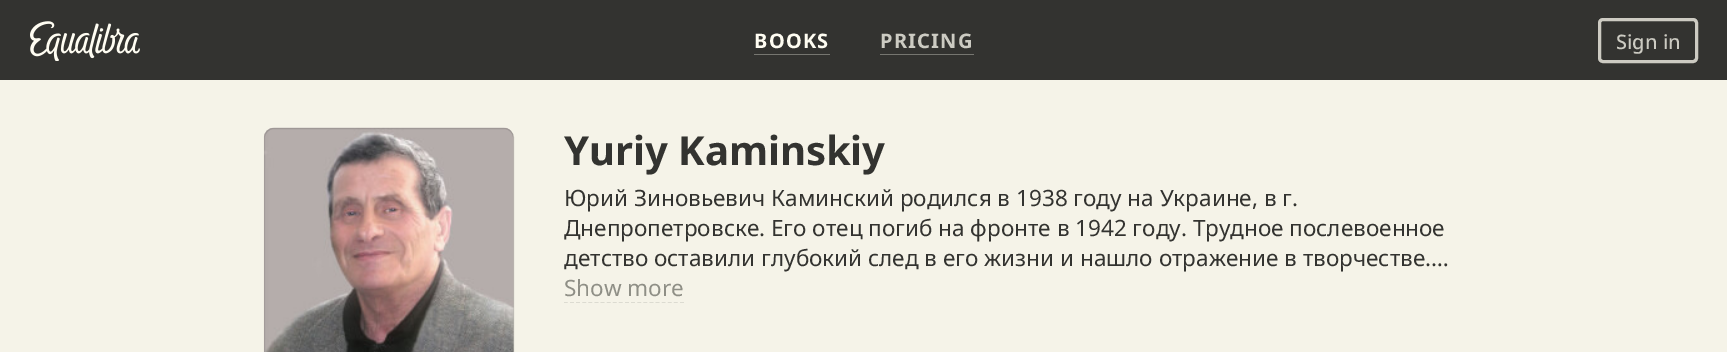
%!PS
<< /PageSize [1727 352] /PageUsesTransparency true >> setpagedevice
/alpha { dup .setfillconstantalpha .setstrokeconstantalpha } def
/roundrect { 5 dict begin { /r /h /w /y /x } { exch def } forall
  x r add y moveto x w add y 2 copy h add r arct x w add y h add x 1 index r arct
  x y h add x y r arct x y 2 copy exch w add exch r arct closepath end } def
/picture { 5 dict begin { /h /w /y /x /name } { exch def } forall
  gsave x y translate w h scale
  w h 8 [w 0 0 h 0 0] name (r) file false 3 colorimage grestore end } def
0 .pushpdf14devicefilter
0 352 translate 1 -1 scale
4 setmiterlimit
0.961 0.953 0.91 setrgbcolor
0 0 1727 352 rectfill
0.2 0.2 0.188 setrgbcolor
0 0 1727 80 rectfill
(img1.rgb) 30 21 110 40 picture
0.463 0.463 0.439 setrgbcolor
754 54 76 1 rectfill
/NotoSans-Bold [20 0 0 -20 0 0] selectfont
1 0.992 0.949 setrgbcolor
754 48 moveto 1.25 0 (BOOKS) ashow
0.463 0.463 0.439 setrgbcolor
880 54 94 1 rectfill
0.8 0.796 0.761 setrgbcolor
880 48 moveto 1.25 0 (PRICING) ashow
0.804 0.796 0.761 setrgbcolor
3 setlinewidth
1599.5 19.5 97 42 3.5 roundrect stroke
/NotoSans-Medium [20 0 0 -20 0 0] selectfont
0.8 0.796 0.761 setrgbcolor
1616 49 moveto (Sign in) show
(img2.rgb) 263 127 251 225 picture
0.12 alpha
0 setgray
1 setlinewidth
264.5 128.5 249 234 9.5 roundrect stroke
/NotoSans-Bold [40 0 0 -40 0 0] selectfont
1 alpha
0.2 0.2 0.188 setrgbcolor
564 165 moveto (Yuriy Kaminskiy) show
/NotoSans-Regular [22.5 0 0 -22.5 0 0] selectfont
564 206 moveto (Юрий Зиновьевич Каминский родился в 1938 году на Украине, в г.) show
564 236 moveto (Днепропетровске. Его отец погиб на фронте в 1942 году. Трудное послевоенное) show
564 266 moveto (детство оставили глубокий след в его жизни и нашло отражение в творчестве.…) show
0.561 0.561 0.525 setrgbcolor
564 296 moveto (Show more) show
gsave
564 183 900 120 rectclip
0.827 0.824 0.784 setrgbcolor
1.2 setlinewidth
[3.75 2.36] 0 setdash
newpath 564 303 moveto 684 303 lineto stroke
grestore
.poppdf14devicefilter showpage
